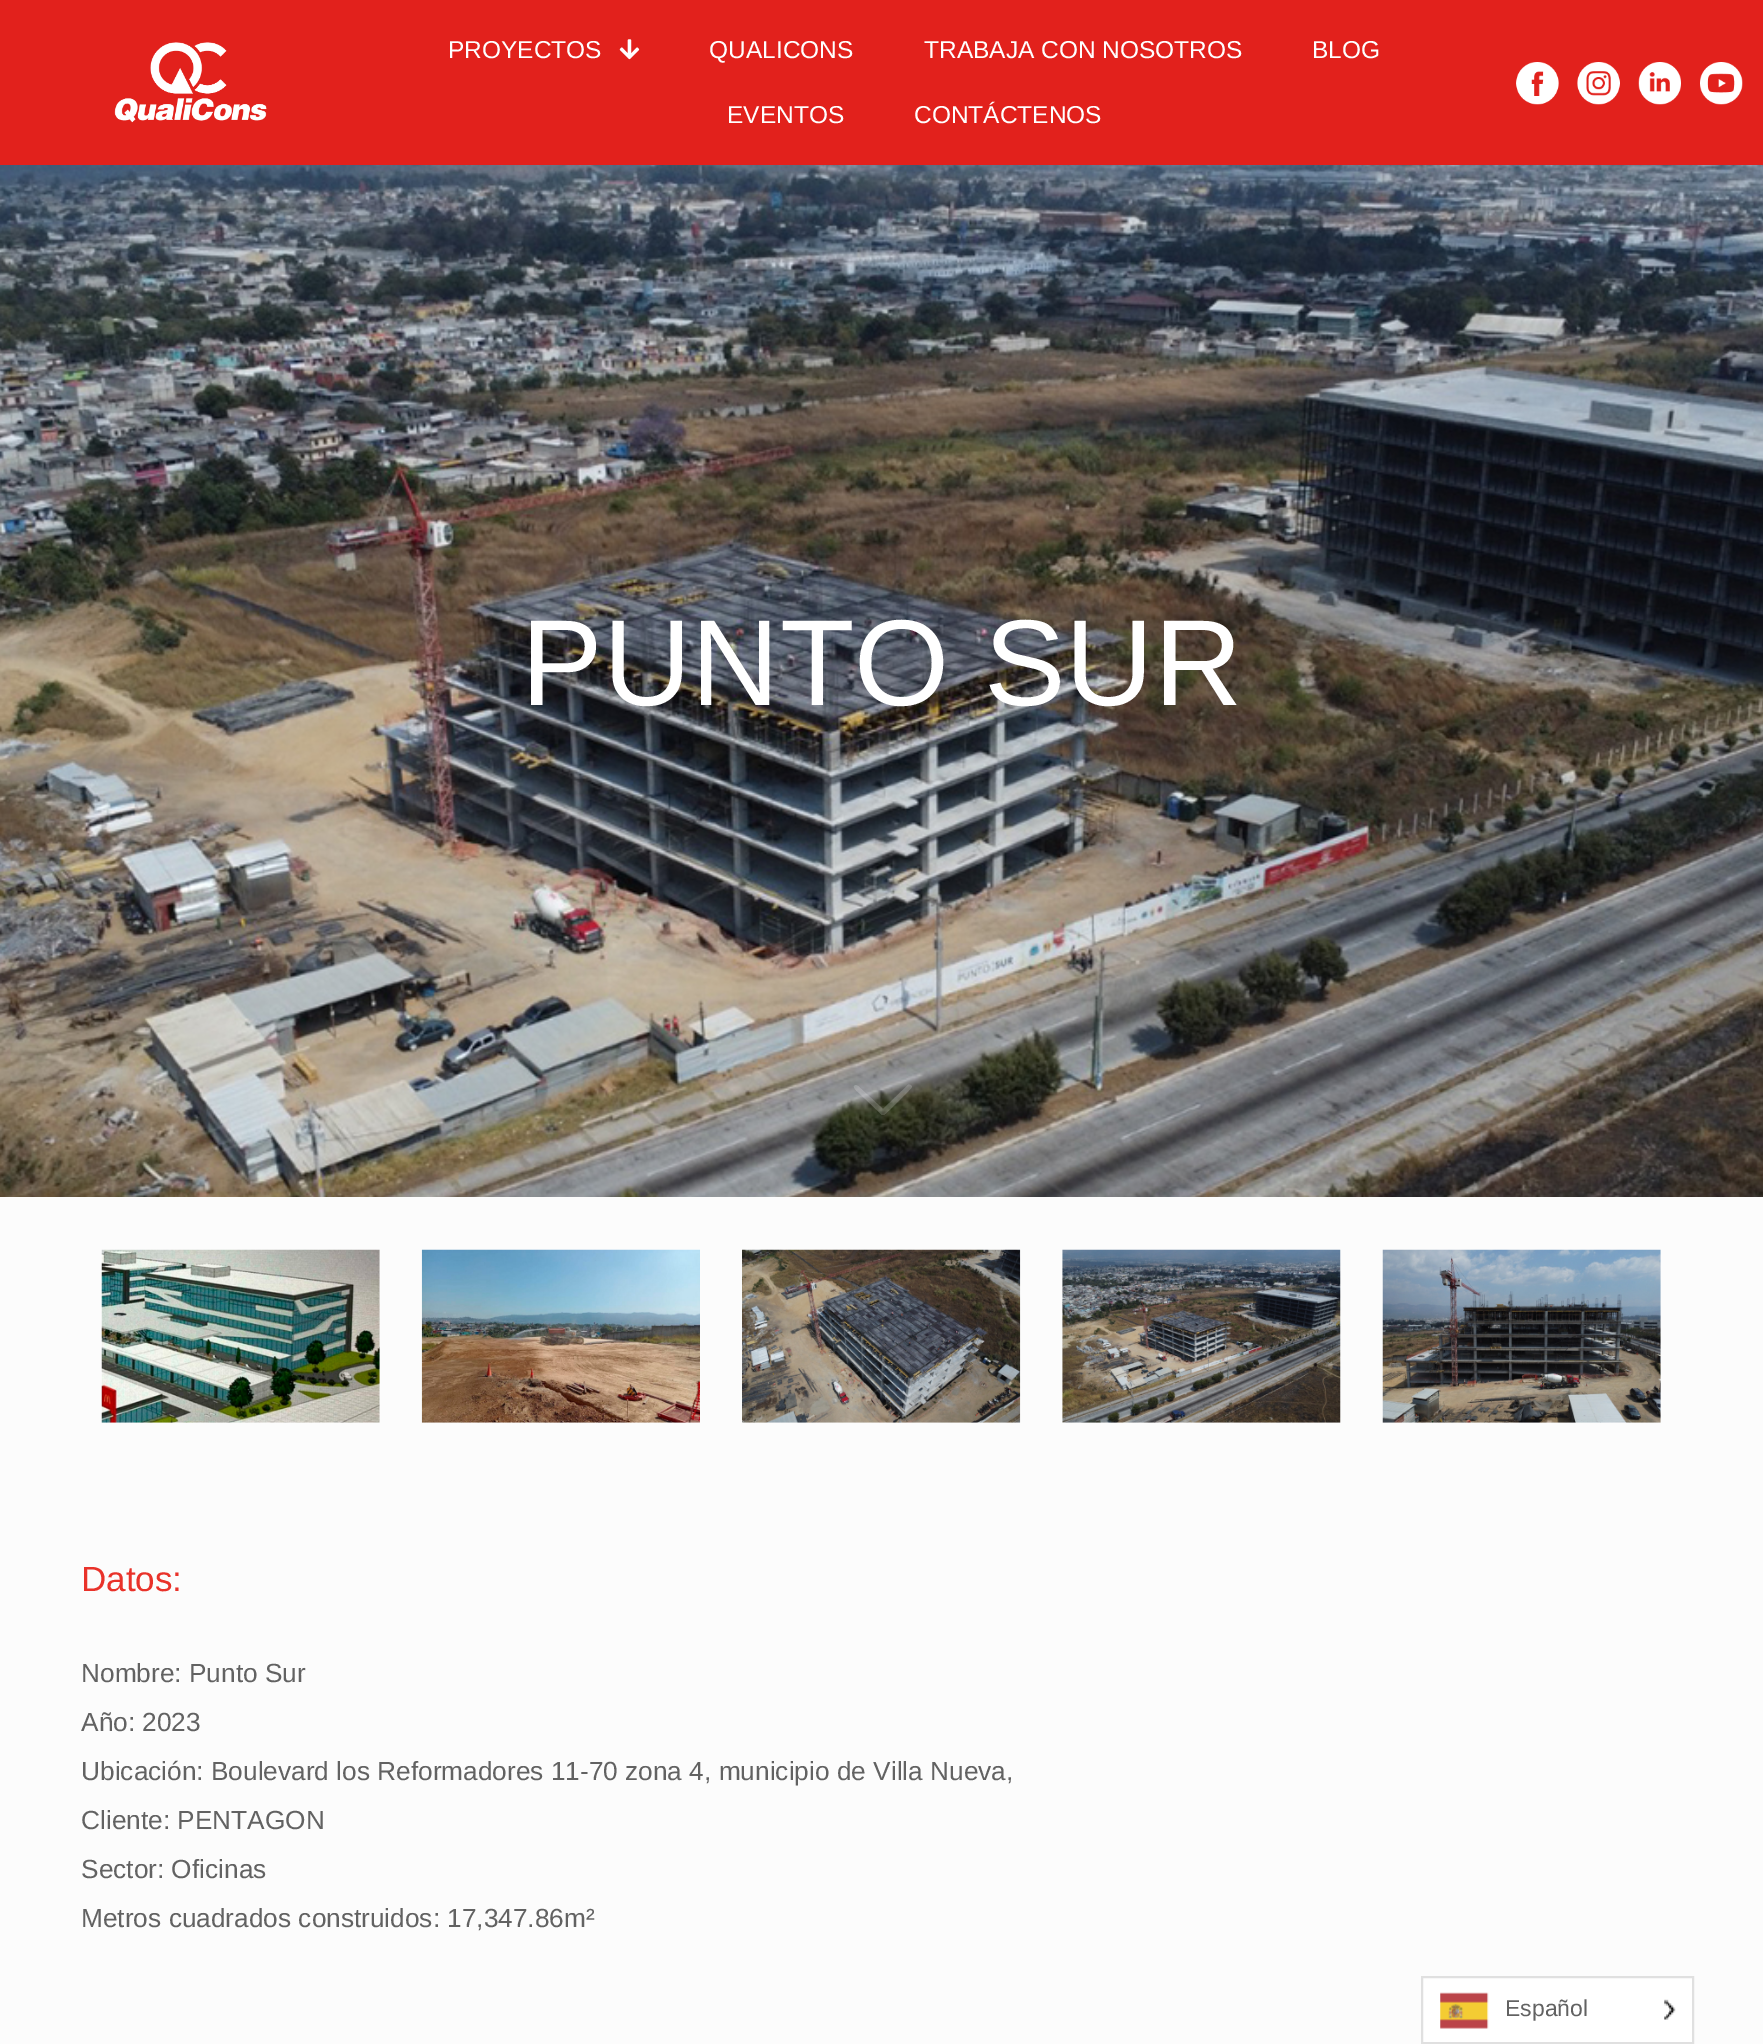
%!PS
<< /PageSize [1763 2044] /PageUsesTransparency true >> setpagedevice
/alpha { dup .setfillconstantalpha .setstrokeconstantalpha } def
/picture { 5 dict begin { /h /w /y /x /name } { exch def } forall
  gsave x y translate w h scale
  w h 8 [w 0 0 h 0 0] name (r) file false 3 colorimage grestore end } def
0 .pushpdf14devicefilter
0 2044 translate 1 -1 scale
4 setmiterlimit
0.988 setgray
0 0 1763 2044 rectfill
0.886 0.129 0.11 setrgbcolor
0 0 1763 165 rectfill
(img1.rgb) 114 42 153 81 picture
/LiberationSans-Regular [24.5 0 0 -24.5 0 0] selectfont
1 setgray
448 58 moveto (PROYECTOS) show
(img2.rgb) 619 39 21 21 picture
709 58 moveto (QUALICONS) show
924 58 moveto (TRABAJA CON NOSOTROS) show
1312 58 moveto (BLOG) show
727 123 moveto (EVENTOS) show
914 123 moveto (CONTÁCTENOS) show
(img3.rgb) 1516 62 43 43 picture
(img4.rgb) 1577 62 43 43 picture
(img5.rgb) 1638 62 43 43 picture
(img6.rgb) 1700 62 43 43 picture
(img7.rgb) 0 165 1763 1032 picture
/LiberationSans-Regular [122.5 0 0 -122.5 0 0] selectfont
521 705 moveto (PUNTO SUR) show
0.2 alpha
newpath 858 1086 moveto 883 1109 lineto 908 1085 lineto 909 1084 912 1085 912 1087 curveto 912 1088 887 1113 884 1115 curveto 882 1115 lineto 859 1093 lineto 859 1093 850 1086 856 1085 curveto closepath fill
1 alpha
(img8.rgb) 101 1249 279 174 picture
(img9.rgb) 421 1249 279 174 picture
(img10.rgb) 742 1249 279 174 picture
(img11.rgb) 1062 1249 279 174 picture
(img12.rgb) 1382 1249 279 174 picture
/LiberationSans-Regular [35 0 0 -35 0 0] selectfont
0.914 0.196 0.165 setrgbcolor
81 1591 moveto (Datos:) show
/LiberationSans-Regular [26.25 0 0 -26.25 0 0] selectfont
0.384 setgray
81 1682 moveto (Nombre: Punto Sur) show
81 1731 moveto (Año: 2023) show
81 1780 moveto (Ubicación: Boulevard los Reformadores 11-70 zona 4, municipio de Villa Nueva,) show
81 1829 moveto (Cliente: PENTAGON) show
81 1878 moveto (Sector: Oficinas) show
81 1927 moveto (Metros cuadrados construidos: 17,347.86m²) show
1 setgray
newpath 1422 1977 moveto 1693 1977 lineto 1693 2043 lineto 1422 2043 lineto closepath gsave fill grestore
0.878 setgray
2 setlinewidth
stroke
(img13.rgb) 1440 1992 49 37 picture
/LiberationSans-Regular [23 0 0 -23 0 0] selectfont
0.384 setgray
1505 2016 moveto (Español) show
(img14.rgb) 1664 1999 12 21 picture
.poppdf14devicefilter showpage
